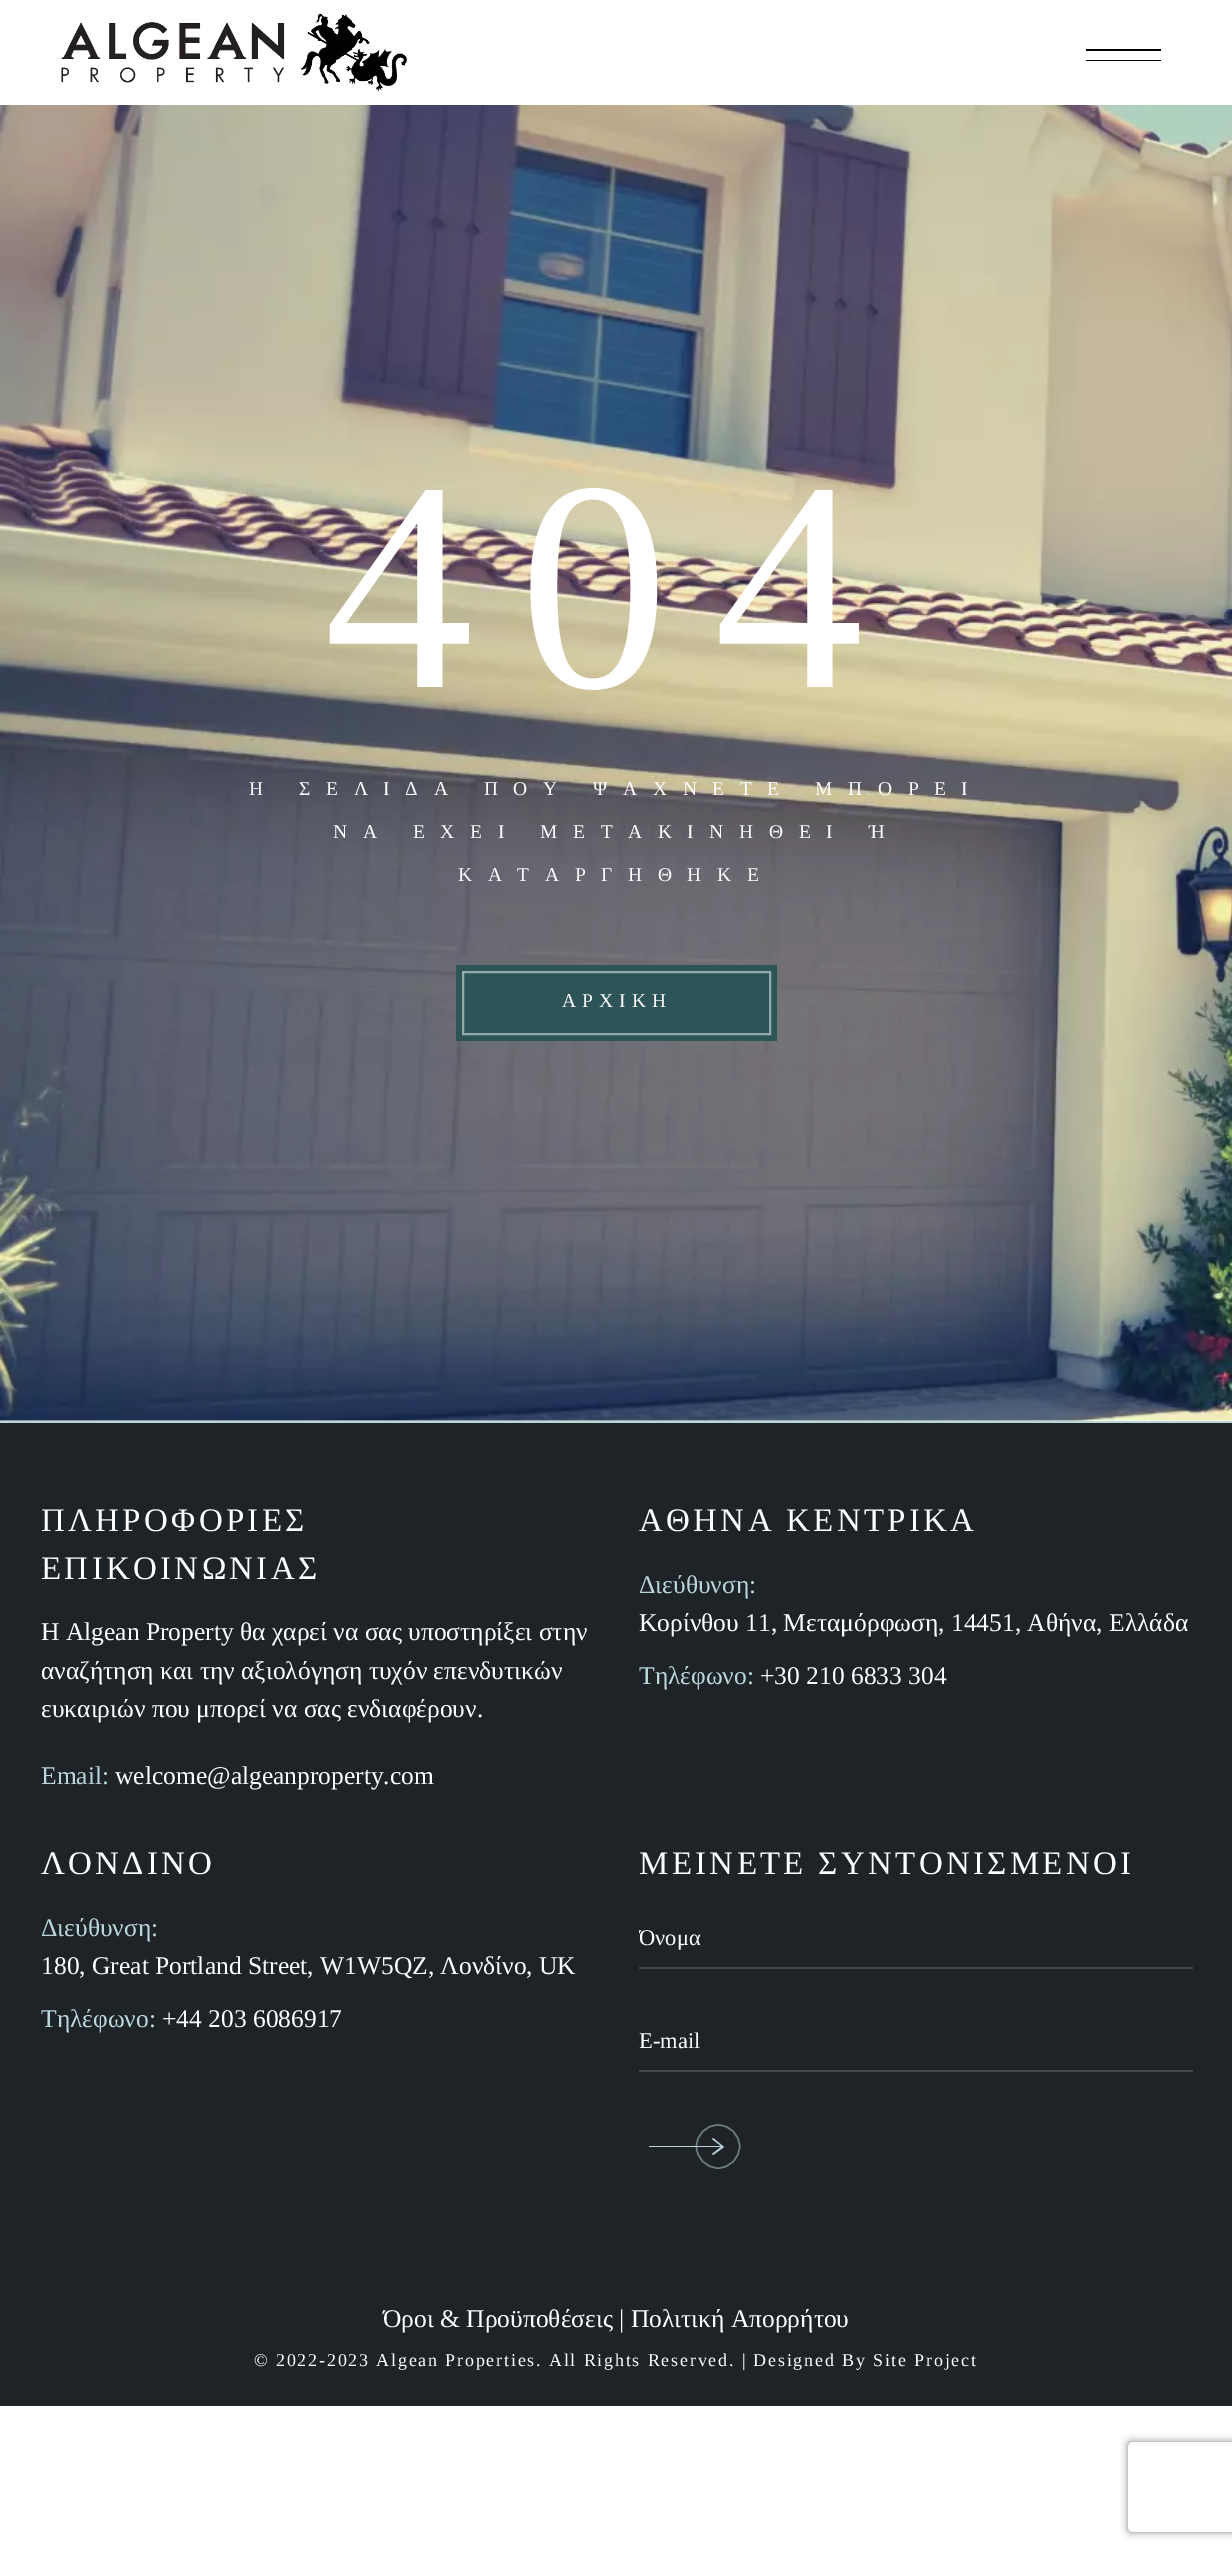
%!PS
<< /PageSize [1232 2552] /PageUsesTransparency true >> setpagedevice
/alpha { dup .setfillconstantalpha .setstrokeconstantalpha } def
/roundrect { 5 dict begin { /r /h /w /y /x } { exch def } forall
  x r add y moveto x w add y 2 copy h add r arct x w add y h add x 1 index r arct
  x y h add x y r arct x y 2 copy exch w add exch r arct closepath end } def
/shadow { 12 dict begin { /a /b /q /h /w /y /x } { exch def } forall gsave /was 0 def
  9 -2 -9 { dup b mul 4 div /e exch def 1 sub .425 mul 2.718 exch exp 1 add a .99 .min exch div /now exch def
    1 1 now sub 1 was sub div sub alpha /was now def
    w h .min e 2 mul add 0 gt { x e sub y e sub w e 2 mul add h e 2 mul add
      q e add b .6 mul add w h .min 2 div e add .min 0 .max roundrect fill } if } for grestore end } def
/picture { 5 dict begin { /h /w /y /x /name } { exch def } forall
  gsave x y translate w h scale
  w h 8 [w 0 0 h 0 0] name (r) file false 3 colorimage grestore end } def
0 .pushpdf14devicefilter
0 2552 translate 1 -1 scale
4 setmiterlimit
1 setgray
0 0 1232 2552 rectfill
(img1.rgb) 61 13 346 79 picture
0 setgray
1086 49 75 2 rectfill
1086 60 75 1 rectfill
(img2.rgb) 0 105 1232 1316 picture
/LiberationSerif-Regular [300 0 0 -300 0 0] selectfont
1 setgray
324 687 moveto 45 0 (404) ashow
/LiberationSerif-Regular [19.5 0 0 -19.5 0 0] selectfont
249 795 moveto 15.6 0 (Η ΣΕΛΙΔΑ ΠΟΥ ΨΑΧΝΕΤΕ ΜΠΟΡΕΙ) ashow
333 838 moveto 15.6 0 (ΝΑ ΕΧΕΙ ΜΕΤΑΚΙΝΗΘΕΙ Ή) ashow
458 881 moveto 15.6 0 (ΚΑΤΑΡΓΗΘΗΚΕ) ashow
0.176 0.329 0.337 setrgbcolor
456 965 321 76 rectfill
0.588 0.667 0.671 setrgbcolor
2 setlinewidth
463 972 307 62 rectstroke
1 setgray
562 1007 moveto 6 0 (ΑΡΧΙΚΗ) ashow
0.114 0.137 0.153 setrgbcolor
0 1423 1232 983 rectfill
0.729 0.839 0.843 setrgbcolor
0 1421 1232 2 rectfill
/LiberationSerif-Regular [33 0 0 -33 0 0] selectfont
1 setgray
41 1531 moveto 3.3 0 (ΠΛΗΡΟΦΟΡΙΕΣ) ashow
41 1579 moveto 3.3 0 (ΕΠΙΚΟΙΝΩΝΙΑΣ) ashow
/LiberationSerif-Regular [25.5 0 0 -25.5 0 0] selectfont
41 1640 moveto (Η Algean Property θα χαρεί να σας υποστηρίξει στην) show
41 1679 moveto (αναζήτηση και την αξιολόγηση τυχόν επενδυτικών) show
41 1717 moveto (ευκαιριών που μπορεί να σας ενδιαφέρουν.) show
0.729 0.839 0.843 setrgbcolor
41 1784 moveto (Email:) show
1 setgray
115 1784 moveto (welcome@algeanproperty.com) show
/LiberationSerif-Regular [33 0 0 -33 0 0] selectfont
639 1531 moveto 3.3 0 (ΑΘΗΝΑ ΚΕΝΤΡΙΚΑ) ashow
/LiberationSerif-Regular [25.5 0 0 -25.5 0 0] selectfont
0.729 0.839 0.843 setrgbcolor
639 1593 moveto (Διεύθυνση:) show
1 setgray
639 1631 moveto (Κορίνθου 11, Μεταμόρφωση, 14451, Αθήνα, Ελλάδα) show
0.729 0.839 0.843 setrgbcolor
639 1684 moveto (Τηλέφωνο:) show
1 setgray
760 1684 moveto (+30 210 6833 304) show
/LiberationSerif-Regular [33 0 0 -33 0 0] selectfont
41 1874 moveto 3.3 0 (ΛΟΝΔΙΝΟ) ashow
/LiberationSerif-Regular [25.5 0 0 -25.5 0 0] selectfont
0.729 0.839 0.843 setrgbcolor
41 1936 moveto (Διεύθυνση:) show
1 setgray
41 1974 moveto (180, Great Portland Street, W1W5QZ, Λονδίνο, UK) show
0.729 0.839 0.843 setrgbcolor
41 2027 moveto (Τηλέφωνο:) show
1 setgray
162 2027 moveto (+44 203 6086917) show
/LiberationSerif-Regular [33 0 0 -33 0 0] selectfont
639 1874 moveto 3.3 0 (ΜΕΙΝΕΤΕ ΣΥΝΤΟΝΙΣΜΕΝΟΙ) ashow
0.278 setgray
639 1967 554 2 rectfill
gsave
639 1926 524 26 rectclip
/LiberationSerif-Regular [22.5 0 0 -22.5 0 0] selectfont
1 setgray
639 1945 moveto (Όνομα) show
grestore
639 2070 554 2 rectfill
/LiberationSerif-Regular [22.5 0 0 -22.5 0 0] selectfont
1 setgray
639 2048 moveto (E-mail) show
0.424 0.49 0.498 setrgbcolor
1.5 setlinewidth
newpath 718 2146.5 21.5 0 360 arc closepath stroke
0.729 0.839 0.843 setrgbcolor
newpath 713 2138 moveto 712 2139 lineto 721 2146 lineto 649 2146 lineto 649 2147 lineto 721 2147 lineto 712 2154 lineto 713 2155 lineto 724 2147 lineto closepath fill
/LiberationSerif-Regular [25.5 0 0 -25.5 0 0] selectfont
1 setgray
383 2327 moveto (Όροι & Προϋποθέσεις | Πολιτική Απορρήτου) show
/LiberationSerif-Regular [18 0 0 -18 0 0] selectfont
254 2366 moveto 1.8 0 (© 2022-2023 Algean Properties. All Rights Reserved. | Designed By Site Project) ashow
gsave
newpath 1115 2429 moveto 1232 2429 lineto 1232 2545 lineto 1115 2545 lineto closepath 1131 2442 moveto 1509 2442 lineto 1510.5 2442 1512 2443.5 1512 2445 curveto 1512 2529 lineto 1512 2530.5 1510.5 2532 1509 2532 curveto 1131 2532 lineto 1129.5 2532 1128 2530.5 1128 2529 curveto 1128 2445 lineto 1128 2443.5 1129.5 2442 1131 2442 curveto closepath eoclip newpath
0.502 setgray
1128 2442 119 90 3 4 1 shadow
grestore
.poppdf14devicefilter showpage
